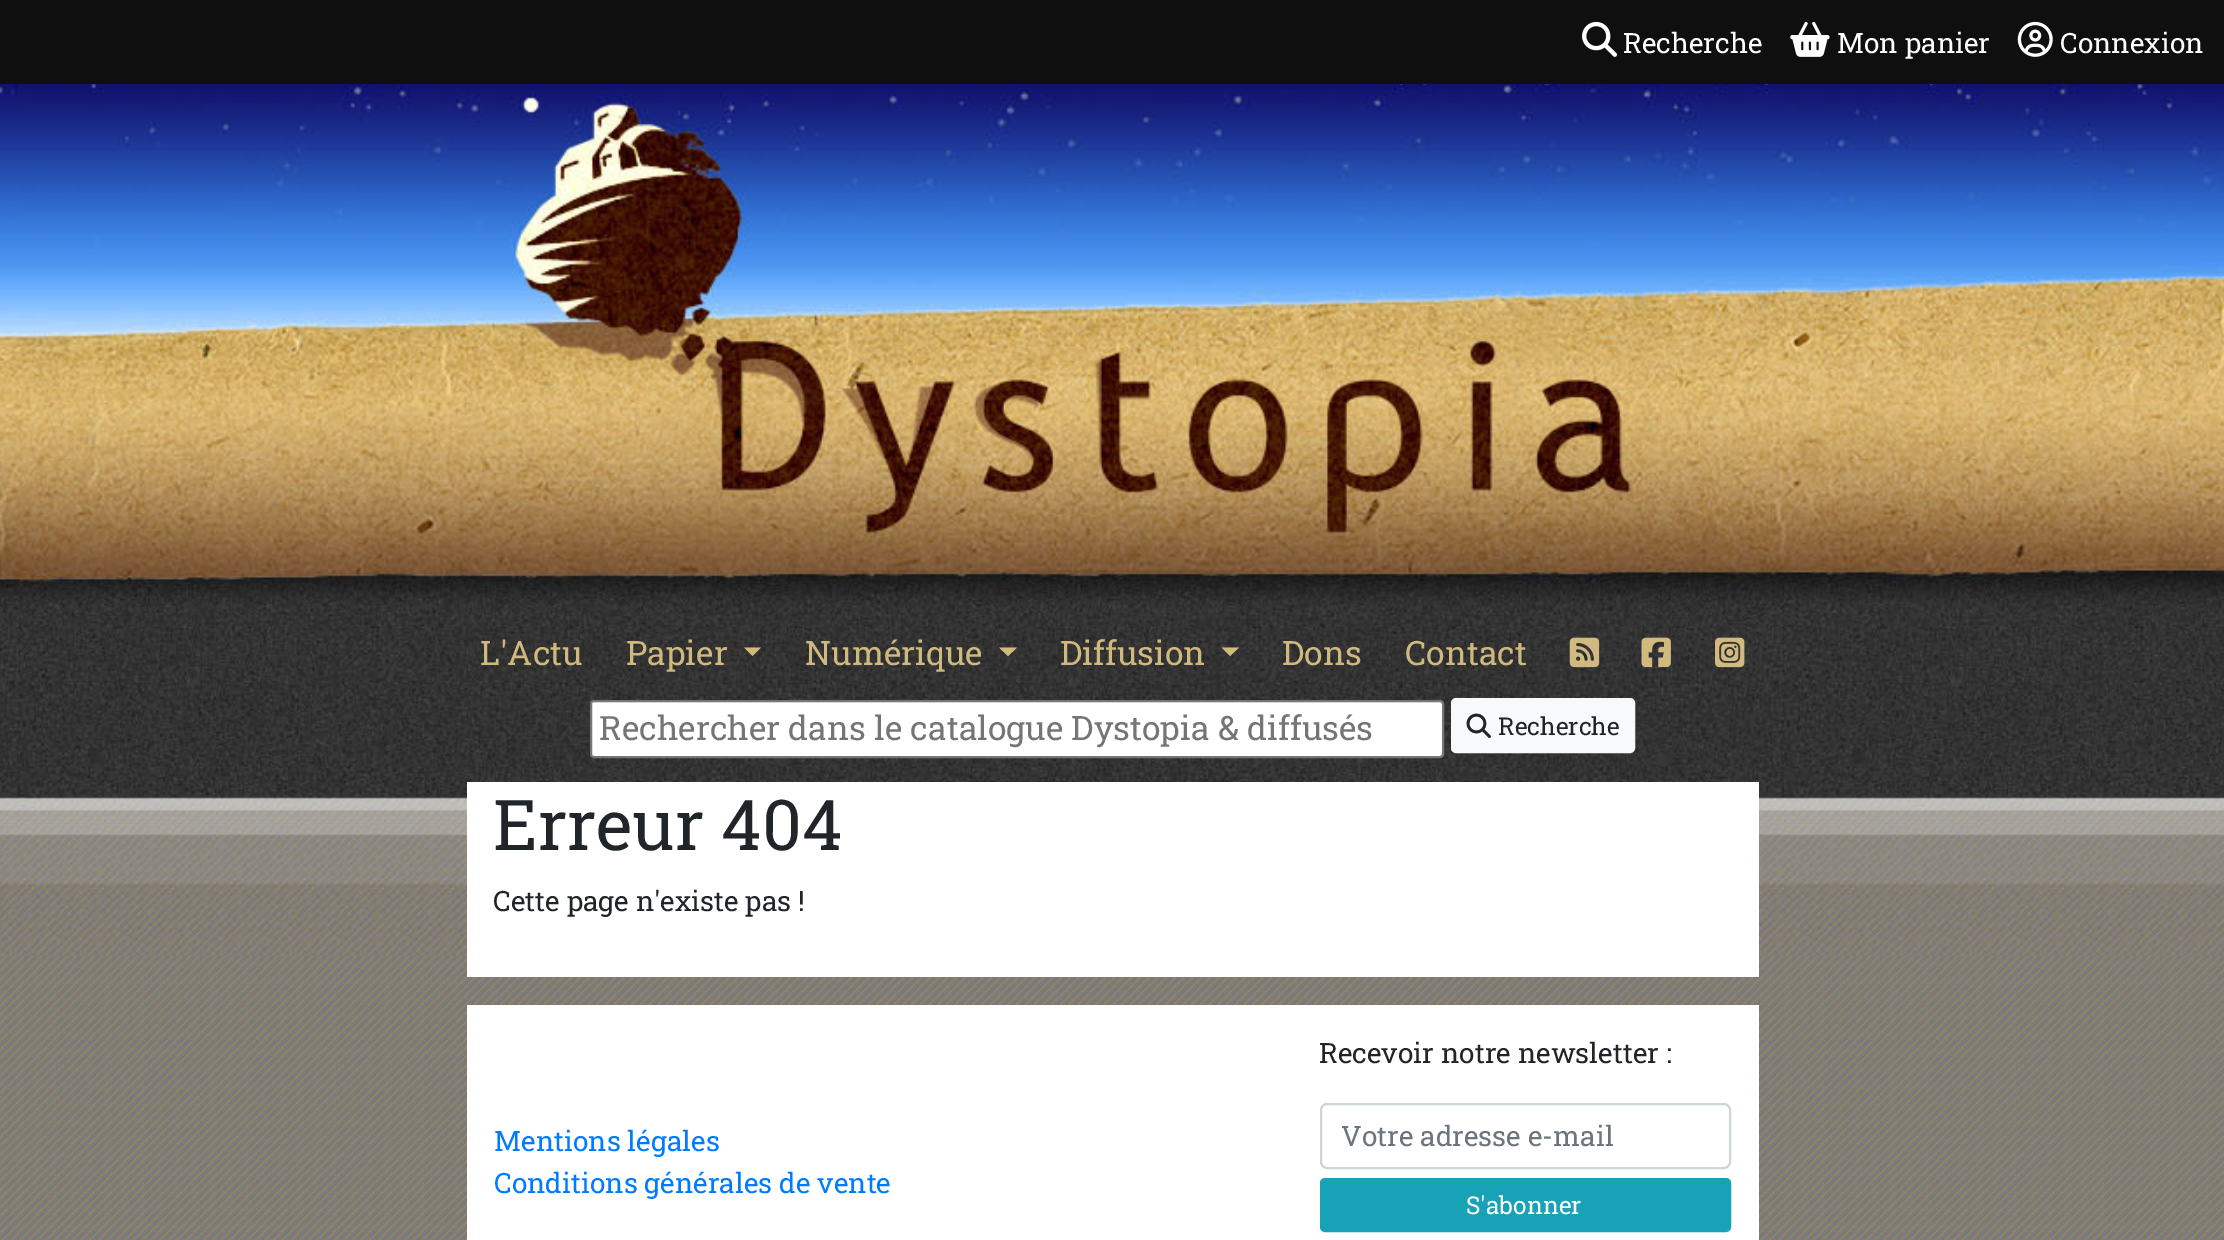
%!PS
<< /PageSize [2224 1240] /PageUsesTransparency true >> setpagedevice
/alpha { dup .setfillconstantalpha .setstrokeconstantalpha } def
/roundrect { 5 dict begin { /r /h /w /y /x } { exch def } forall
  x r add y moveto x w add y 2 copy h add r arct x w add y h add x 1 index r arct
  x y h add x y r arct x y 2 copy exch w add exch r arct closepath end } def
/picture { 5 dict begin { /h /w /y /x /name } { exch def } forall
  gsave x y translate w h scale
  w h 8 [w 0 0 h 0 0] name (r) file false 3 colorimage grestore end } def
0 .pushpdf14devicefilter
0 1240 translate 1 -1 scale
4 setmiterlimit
1 setgray
0 0 2224 1240 rectfill
(img1.rgb) 0 84 2224 1156 picture
0.059 setgray
0 0 2224 84 rectfill
(img2.rgb) 1582 21 35 36 picture
/RobotoSlab-Regular [28 0 0 -28 0 0] selectfont
1 setgray
1623 53 moveto (Recherche) show
(img3.rgb) 1790 21 40 36 picture
1837 53 moveto (Mon panier) show
(img4.rgb) 2017 21 36 36 picture
2060 53 moveto (Connexion) show
/RobotoSlab-Regular [33.6 0 0 -33.6 0 0] selectfont
0.816 0.725 0.498 setrgbcolor
480 665 moveto (L'Actu) show
626 665 moveto (Papier) show
0.9 alpha
0.886 0.784 0.533 setrgbcolor
newpath 744 647.5 moveto 761 647.5 lineto 752.5 656 lineto closepath fill
1 alpha
0.816 0.725 0.498 setrgbcolor
805 665 moveto (Numérique) show
0.9 alpha
0.886 0.784 0.533 setrgbcolor
newpath 999 647.5 moveto 1017 647.5 lineto 1008 656 lineto closepath fill
1 alpha
0.816 0.725 0.498 setrgbcolor
1060 665 moveto (Diffusion) show
0.9 alpha
0.886 0.784 0.533 setrgbcolor
newpath 1221.5 647.5 moveto 1239 647.5 lineto 1230 656 lineto closepath fill
1 alpha
0.816 0.725 0.498 setrgbcolor
1282 665 moveto (Dons) show
1405 665 moveto (Contact) show
(img5.rgb) 1569 637 31 31 picture
(img6.rgb) 1641 637 30 31 picture
(img7.rgb) 1715 637 30 31 picture
1 setgray
591 701 852 56 3 roundrect gsave fill grestore
0.463 setgray
2 setlinewidth
stroke
0.459 setgray
599 740 moveto (Rechercher dans le catalogue Dystopia & diffusés) show
0.973 0.976 0.98 setrgbcolor
1452 699 182 53 4 roundrect gsave fill grestore
stroke
(img8.rgb) 1466 713 25 25 picture
/RobotoSlab-Regular [24.5 0 0 -24.5 0 0] selectfont
0.129 0.145 0.161 setrgbcolor
1498 735 moveto (Recherche) show
1 setgray
467 782 1292 195 rectfill
/RobotoSlab-Regular [70 0 0 -70 0 0] selectfont
0.129 0.145 0.161 setrgbcolor
493 850 moveto (Erreur 404) show
/RobotoSlab-Regular [28 0 0 -28 0 0] selectfont
493 911 moveto (Cette page n'existe pas !) show
1 setgray
467 1005 1292 235 rectfill
0 0.482 1 setrgbcolor
494 1151 moveto (Mentions légales) show
494 1193 moveto (Conditions générales de vente) show
0.129 0.145 0.161 setrgbcolor
1319 1063 moveto (Recevoir notre newsletter :) show
0.808 0.831 0.855 setrgbcolor
1321 1104 409 64 6 roundrect stroke
0.424 0.459 0.49 setrgbcolor
1341 1146 moveto (Votre adresse e-mail) show
0.09 0.635 0.722 setrgbcolor
1321 1179 409 52 4 roundrect gsave fill grestore
stroke
/RobotoSlab-Regular [24.5 0 0 -24.5 0 0] selectfont
1 setgray
1466 1214 moveto (S'abonner) show
.poppdf14devicefilter showpage
